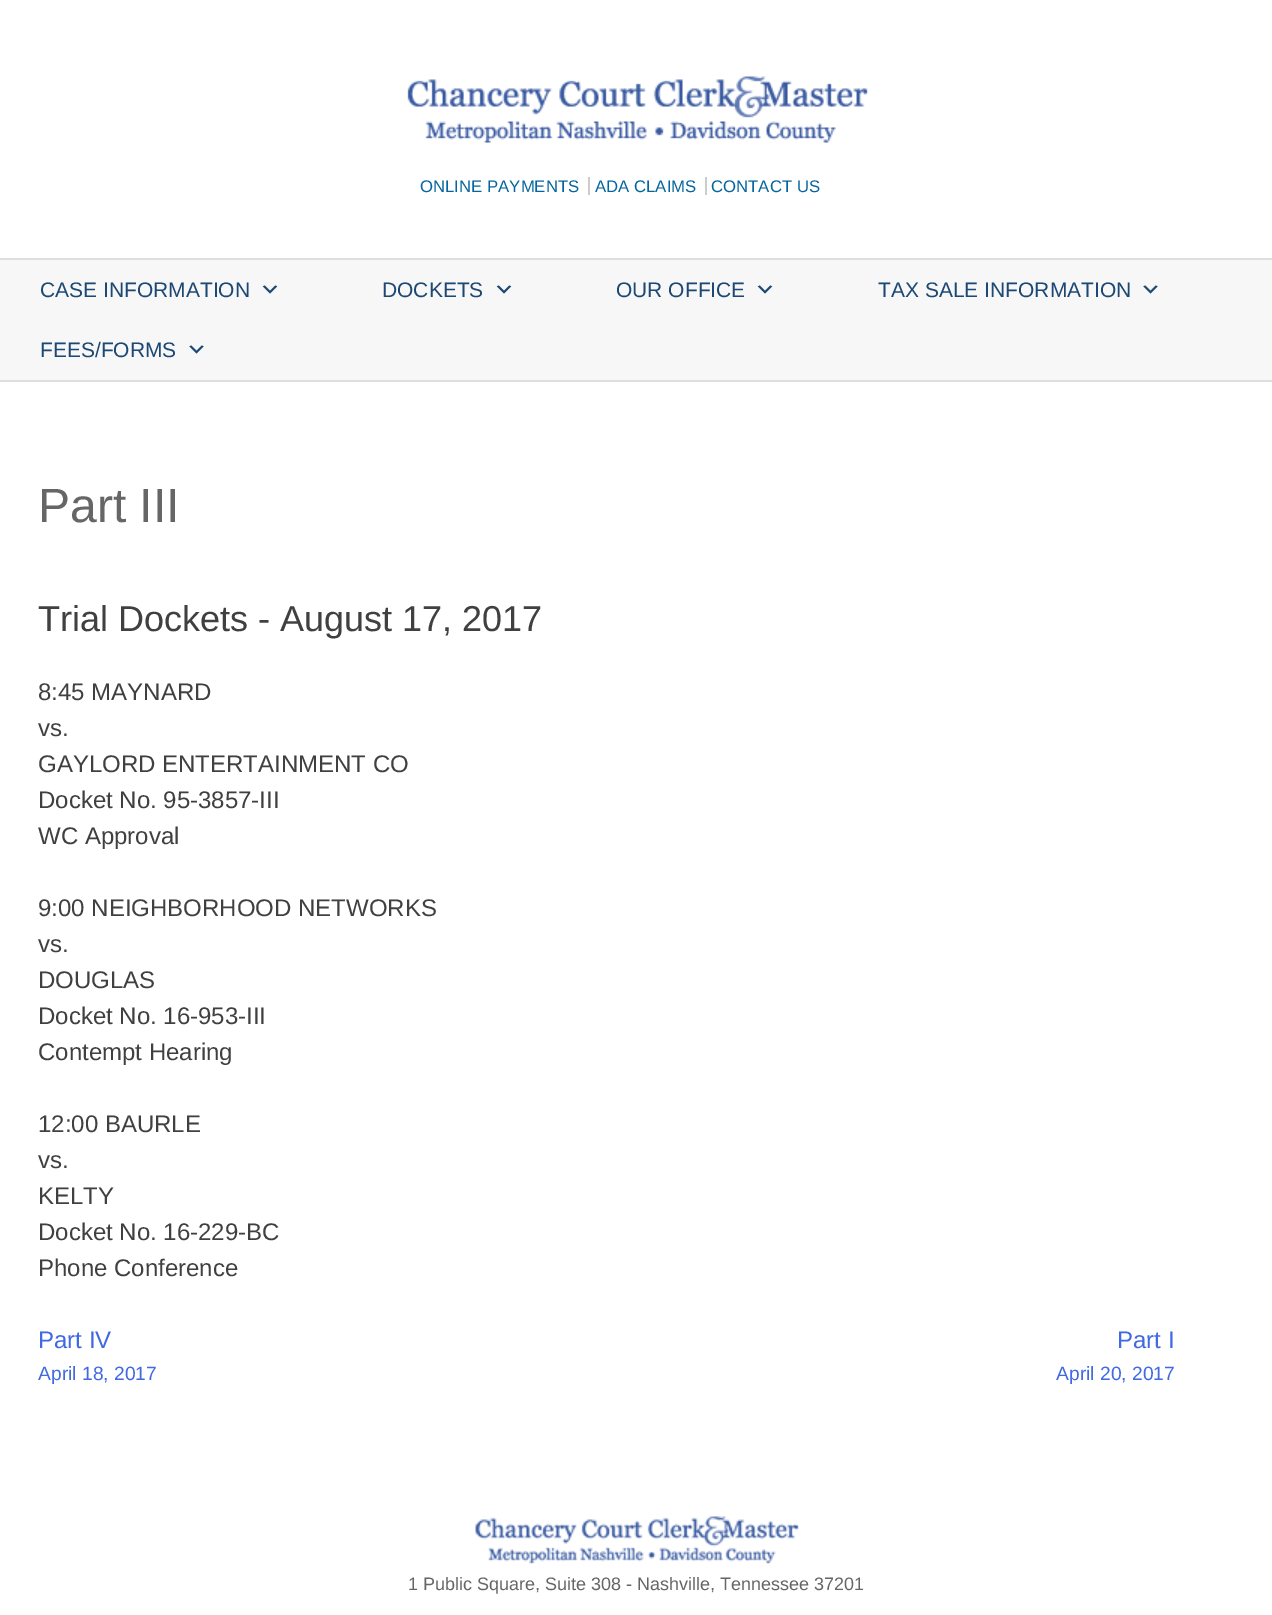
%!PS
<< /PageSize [1272 1615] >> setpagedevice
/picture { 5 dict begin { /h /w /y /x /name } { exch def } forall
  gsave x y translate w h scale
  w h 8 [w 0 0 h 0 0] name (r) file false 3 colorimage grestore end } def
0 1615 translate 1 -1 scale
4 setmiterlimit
1 setgray
0 0 1272 1615 rectfill
(img1.rgb) 407 76 461 67 picture
0.8 setgray
588 177 2 18 rectfill
/LiberationSans-Regular [16.75 0 0 -16.75 0 0] selectfont
0.016 0.396 0.624 setrgbcolor
420 192 moveto (ONLINE PAYMENTS) show
0.8 setgray
705 177 2 18 rectfill
0.016 0.396 0.624 setrgbcolor
595 192 moveto (ADA CLAIMS) show
711 192 moveto (CONTACT US) show
0.969 setgray
0 260 1272 120 rectfill
0.871 setgray
0 258 1272 2 rectfill
0 380 1272 2 rectfill
/LiberationSans-Regular [21 0 0 -21 0 0] selectfont
0.11 0.282 0.451 setrgbcolor
40 297 moveto (CASE INFORMATION) show
(img2.rgb) 262 285 16 9 picture
382 297 moveto (DOCKETS) show
(img2.rgb) 496 285 16 9 picture
616 297 moveto (OUR OFFICE) show
(img2.rgb) 757 285 16 9 picture
878 297 moveto (TAX SALE INFORMATION) show
(img3.rgb) 1143 285 15 9 picture
40 357 moveto (FEES/FORMS) show
(img3.rgb) 189 345 15 9 picture
/LiberationSans-Regular [48 0 0 -48 0 0] selectfont
0.4 setgray
38 522 moveto (Part III) show
/LiberationSans-Regular [36 0 0 -36 0 0] selectfont
0.251 setgray
38 631 moveto (Trial Dockets - August 17, 2017) show
/LiberationSans-Regular [24 0 0 -24 0 0] selectfont
38 700 moveto (8:45 MAYNARD) show
38 736 moveto (vs.) show
38 772 moveto (GAYLORD ENTERTAINMENT CO) show
38 808 moveto (Docket No. 95-3857-III) show
38 844 moveto (WC Approval) show
38 916 moveto (9:00 NEIGHBORHOOD NETWORKS) show
38 952 moveto (vs.) show
38 988 moveto (DOUGLAS) show
38 1024 moveto (Docket No. 16-953-III) show
38 1060 moveto (Contempt Hearing) show
38 1132 moveto (12:00 BAURLE) show
38 1168 moveto (vs.) show
38 1204 moveto (KELTY) show
38 1240 moveto (Docket No. 16-229-BC) show
38 1276 moveto (Phone Conference) show
0.255 0.412 0.882 setrgbcolor
38 1348 moveto (Part IV) show
/LiberationSans-Regular [19.25 0 0 -19.25 0 0] selectfont
38 1380 moveto (April 18, 2017) show
/LiberationSans-Regular [24 0 0 -24 0 0] selectfont
1117 1348 moveto (Part I) show
/LiberationSans-Regular [19.25 0 0 -19.25 0 0] selectfont
1056 1380 moveto (April 20, 2017) show
(img4.rgb) 475 1516 324 48 picture
/LiberationSans-Regular [18 0 0 -18 0 0] selectfont
0.4 setgray
408 1590 moveto (1 Public Square, Suite 308 - Nashville, Tennessee 37201) show
showpage
